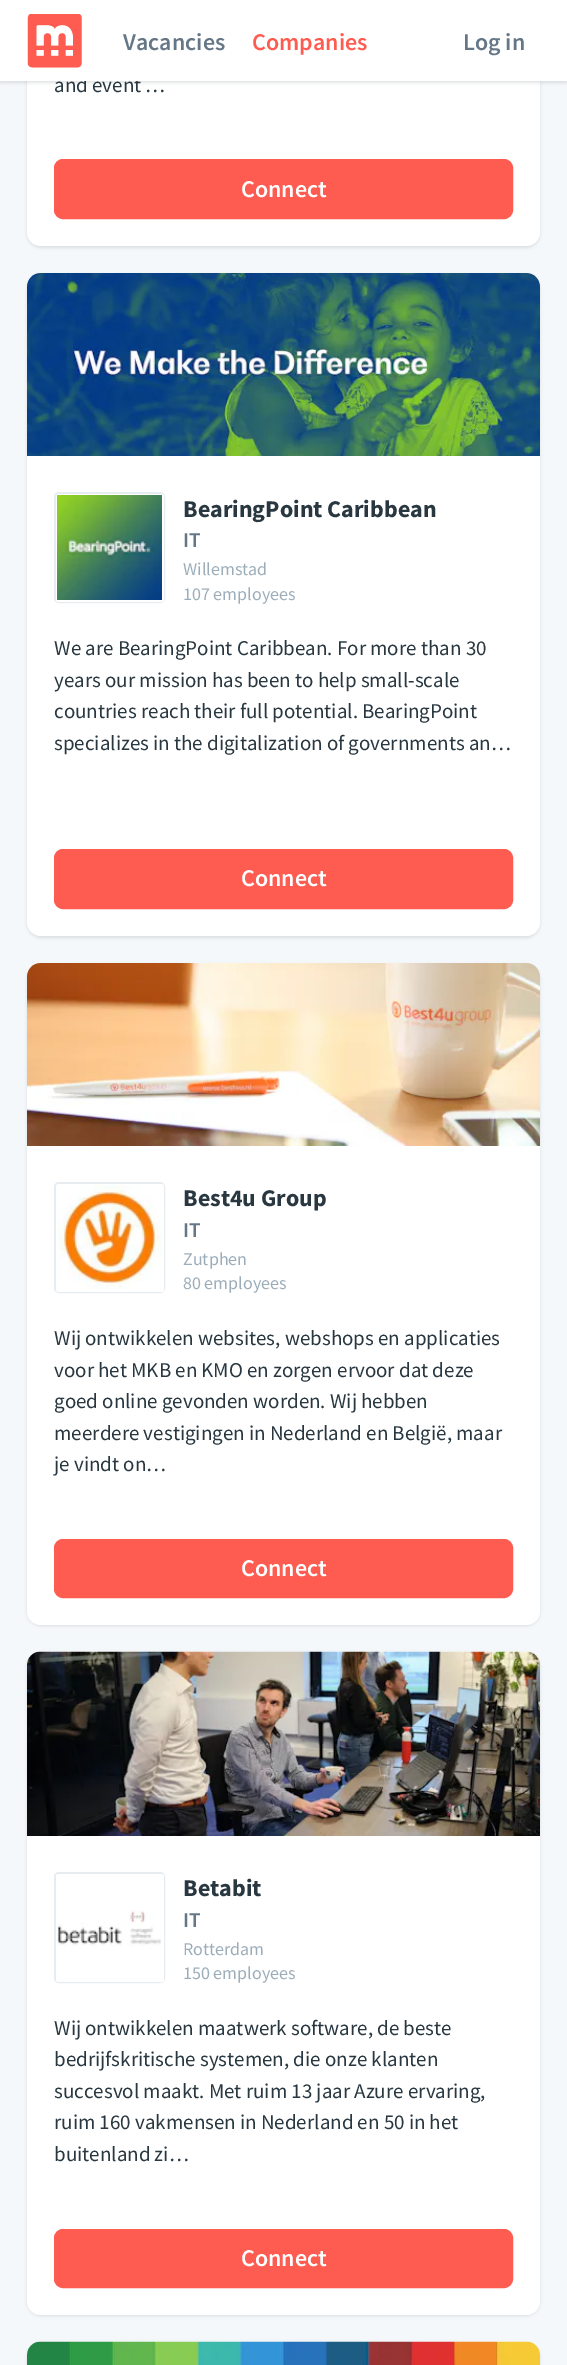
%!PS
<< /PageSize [567 2365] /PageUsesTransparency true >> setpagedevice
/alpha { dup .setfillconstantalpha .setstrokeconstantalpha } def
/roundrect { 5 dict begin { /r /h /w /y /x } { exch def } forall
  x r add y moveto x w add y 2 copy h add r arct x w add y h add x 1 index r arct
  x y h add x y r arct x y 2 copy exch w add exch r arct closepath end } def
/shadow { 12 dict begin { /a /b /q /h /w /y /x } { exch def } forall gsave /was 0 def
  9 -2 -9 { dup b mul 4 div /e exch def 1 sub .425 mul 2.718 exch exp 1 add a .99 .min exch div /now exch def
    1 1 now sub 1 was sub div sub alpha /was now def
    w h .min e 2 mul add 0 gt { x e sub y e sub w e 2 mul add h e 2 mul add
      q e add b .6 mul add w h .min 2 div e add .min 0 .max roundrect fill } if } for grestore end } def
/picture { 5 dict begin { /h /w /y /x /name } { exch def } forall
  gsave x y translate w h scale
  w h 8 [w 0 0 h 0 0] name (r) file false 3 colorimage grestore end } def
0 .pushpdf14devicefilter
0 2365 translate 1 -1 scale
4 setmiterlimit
0.961 0.973 0.98 setrgbcolor
0 0 567 2365 rectfill
0.157 0.216 0.251 setrgbcolor
27 -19 513 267 14 1.5 0.12 shadow
1 setgray
27 -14 513 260 14 roundrect fill
0.157 0.216 0.251 setrgbcolor
0 2 567 81 0 1.5 0.12 shadow
/SourceSansPro-Regular [21 0 0 -21 0 0] selectfont
54 92 moveto (and event …) show
1 setgray
0 0 567 81 rectfill
(img1.rgb) 27 14 55 54 picture
/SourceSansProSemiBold-SemiBold [24 0 0 -24 0 0] selectfont
0.396 0.467 0.525 setrgbcolor
123 50 moveto (Vacancies) show
1 0.361 0.318 setrgbcolor
252 50 moveto (Companies) show
0.396 0.467 0.525 setrgbcolor
463 50 moveto (Log in) show
1 0.361 0.318 setrgbcolor
55 160 457 58 8 roundrect gsave fill grestore
2 setlinewidth
stroke
1 setgray
241 197 moveto (Connect) show
0.157 0.216 0.251 setrgbcolor
27 275 513 663 14 1.5 0.12 shadow
1 setgray
27 273 513 663 14 roundrect fill
(img2.rgb) 27 273 513 183 picture
0.902 0.925 0.941 setrgbcolor
55 493 109 109 4 roundrect stroke
1 setgray
newpath 59 494 moveto 57 494 56 495 56 497 curveto 56 599 lineto 56 601 57 602 59 602 curveto 161 602 lineto 163 602 164 601 164 599 curveto 164 497 lineto 164 495 163 494 161 494 curveto closepath fill
(img3.rgb) 57 495 105 105 picture
/SourceSansPro-Bold [24 0 0 -24 0 0] selectfont
0.157 0.216 0.251 setrgbcolor
183 517 moveto (BearingPoint Caribbean) show
/SourceSansProSemiBold-SemiBold [21 0 0 -21 0 0] selectfont
0.396 0.467 0.525 setrgbcolor
183 547 moveto (IT) show
/SourceSansPro-Regular [18 0 0 -18 0 0] selectfont
0.612 0.678 0.729 setrgbcolor
183 575 moveto (Willemstad) show
183 600 moveto (107 employees) show
/SourceSansPro-Regular [21 0 0 -21 0 0] selectfont
0.157 0.216 0.251 setrgbcolor
54 655 moveto (We are BearingPoint Caribbean. For more than 30) show
54 687 moveto (years our mission has been to help small-scale) show
54 718 moveto (countries reach their full potential. BearingPoint) show
54 750 moveto (specializes in the digitalization of governments an…) show
1 0.361 0.318 setrgbcolor
55 850 457 58 8 roundrect gsave fill grestore
stroke
/SourceSansProSemiBold-SemiBold [24 0 0 -24 0 0] selectfont
1 setgray
241 886 moveto (Connect) show
0.157 0.216 0.251 setrgbcolor
27 965 513 661 14 1.5 0.12 shadow
1 setgray
27 963 513 662 14 roundrect fill
(img4.rgb) 27 963 513 183 picture
0.902 0.925 0.941 setrgbcolor
55 1183 109 109 4 roundrect stroke
1 setgray
newpath 59 1184 moveto 57 1184 56 1185 56 1187 curveto 56 1289 lineto 56 1291 57 1292 59 1292 curveto 161 1292 lineto 163 1292 164 1291 164 1289 curveto 164 1187 lineto 164 1185 163 1184 161 1184 curveto closepath fill
(img5.rgb) 57 1185 105 105 picture
/SourceSansPro-Bold [24 0 0 -24 0 0] selectfont
0.157 0.216 0.251 setrgbcolor
183 1206 moveto (Best4u Group) show
/SourceSansProSemiBold-SemiBold [21 0 0 -21 0 0] selectfont
0.396 0.467 0.525 setrgbcolor
183 1237 moveto (IT) show
/SourceSansPro-Regular [18 0 0 -18 0 0] selectfont
0.612 0.678 0.729 setrgbcolor
183 1265 moveto (Zutphen) show
183 1289 moveto (80 employees) show
/SourceSansPro-Regular [21 0 0 -21 0 0] selectfont
0.157 0.216 0.251 setrgbcolor
54 1345 moveto (Wij ontwikkelen websites, webshops en applicaties) show
54 1377 moveto (voor het MKB en KMO en zorgen ervoor dat deze) show
54 1408 moveto (goed online gevonden worden. Wij hebben) show
54 1440 moveto (meerdere vestigingen in Nederland en België, maar) show
54 1471 moveto (je vindt on…) show
1 0.361 0.318 setrgbcolor
55 1540 457 57 8 roundrect gsave fill grestore
stroke
/SourceSansProSemiBold-SemiBold [24 0 0 -24 0 0] selectfont
1 setgray
241 1576 moveto (Connect) show
0.157 0.216 0.251 setrgbcolor
27 1653 513 663 14 1.5 0.12 shadow
1 setgray
27 1652 513 663 14 roundrect fill
(img6.rgb) 27 1651 513 185 picture
0.902 0.925 0.941 setrgbcolor
55 1873 109 109 4 roundrect stroke
1 setgray
newpath 59 1874 moveto 57 1874 56 1875 56 1877 curveto 56 1979 lineto 56 1981 57 1982 59 1982 curveto 161 1982 lineto 163 1982 164 1981 164 1979 curveto 164 1877 lineto 164 1875 163 1874 161 1874 curveto closepath fill
(img7.rgb) 57 1910 105 37 picture
/SourceSansPro-Bold [24 0 0 -24 0 0] selectfont
0.157 0.216 0.251 setrgbcolor
183 1896 moveto (Betabit) show
/SourceSansProSemiBold-SemiBold [21 0 0 -21 0 0] selectfont
0.396 0.467 0.525 setrgbcolor
183 1927 moveto (IT) show
/SourceSansPro-Regular [18 0 0 -18 0 0] selectfont
0.612 0.678 0.729 setrgbcolor
183 1955 moveto (Rotterdam) show
183 1979 moveto (150 employees) show
/SourceSansPro-Regular [21 0 0 -21 0 0] selectfont
0.157 0.216 0.251 setrgbcolor
54 2035 moveto (Wij ontwikkelen maatwerk software, de beste) show
54 2066 moveto (bedrijfskritische systemen, die onze klanten) show
54 2098 moveto (succesvol maakt. Met ruim 13 jaar Azure ervaring,) show
54 2129 moveto (ruim 160 vakmensen in Nederland en 50 in het) show
54 2161 moveto (buitenland zi…) show
1 0.361 0.318 setrgbcolor
55 2230 457 57 8 roundrect gsave fill grestore
stroke
/SourceSansProSemiBold-SemiBold [24 0 0 -24 0 0] selectfont
1 setgray
241 2266 moveto (Connect) show
0.157 0.216 0.251 setrgbcolor
27 2343 513 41 14 1.5 0.12 shadow
(img8.rgb) 27 2341 513 24 picture
.poppdf14devicefilter showpage
